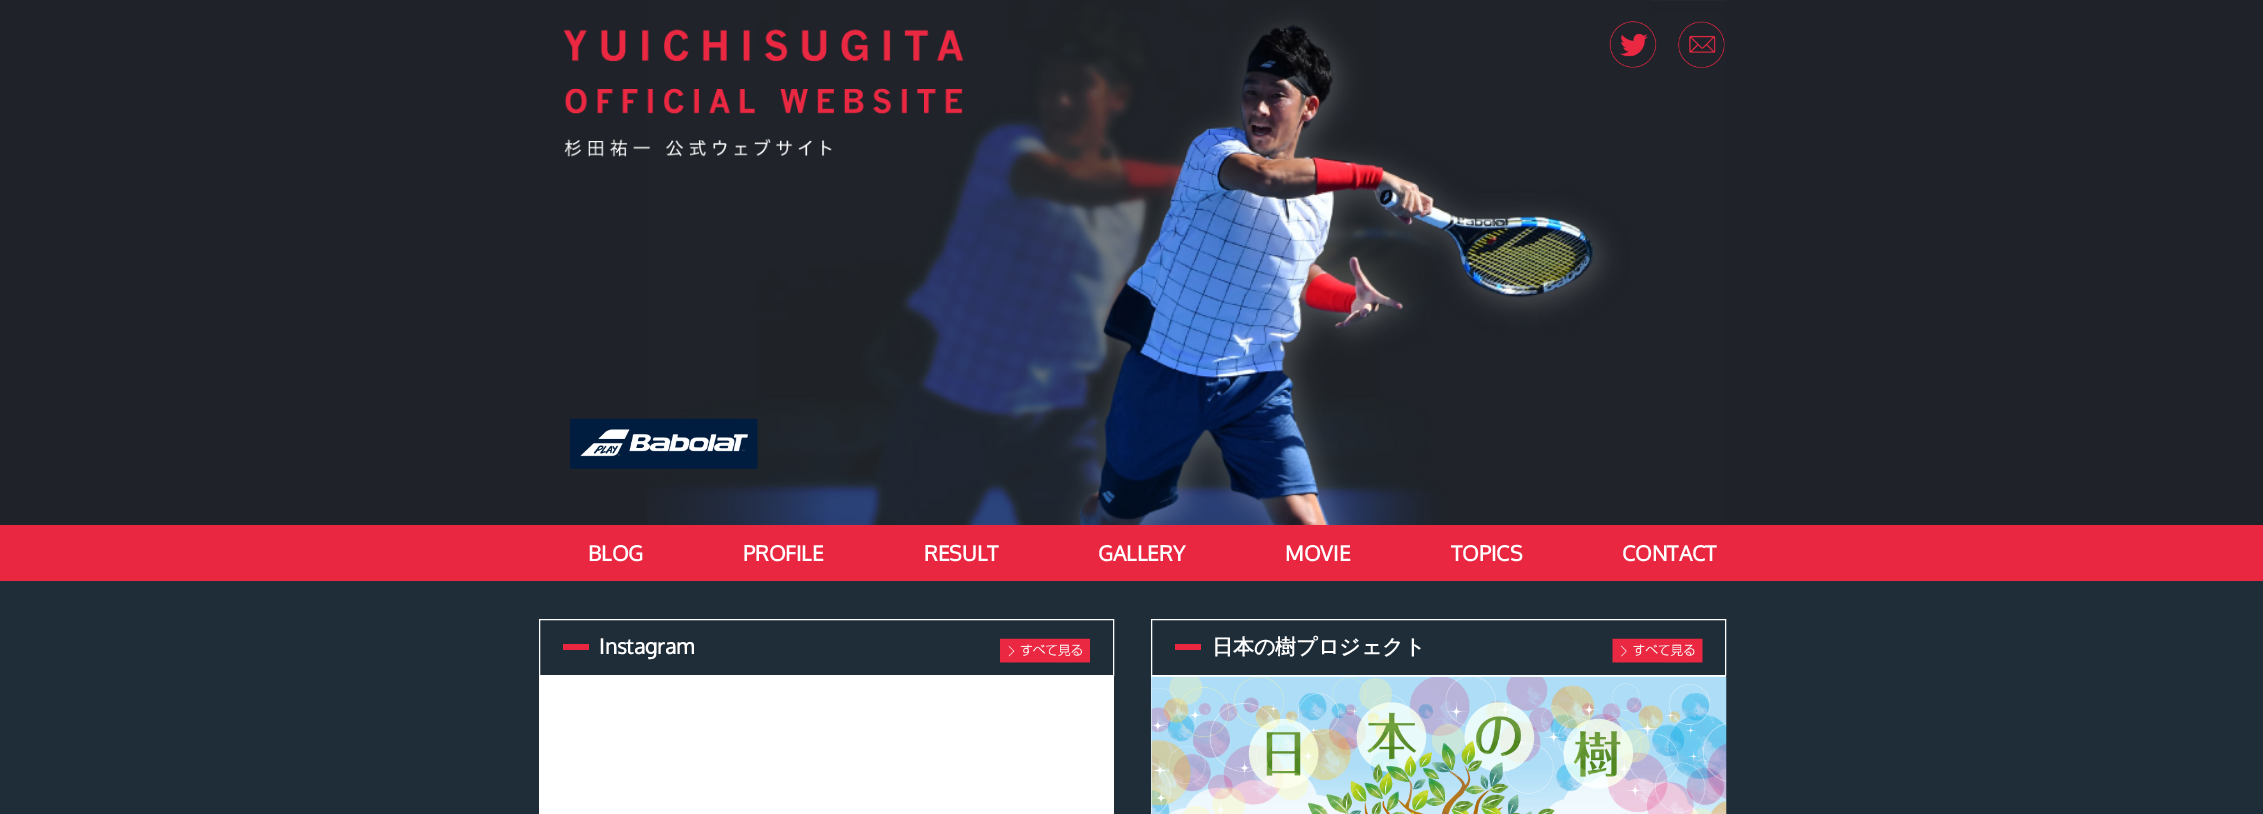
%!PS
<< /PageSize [2263 814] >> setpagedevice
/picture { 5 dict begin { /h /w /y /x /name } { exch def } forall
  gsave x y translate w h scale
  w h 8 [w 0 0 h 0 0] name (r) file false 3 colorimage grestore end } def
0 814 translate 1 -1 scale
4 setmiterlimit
0.118 0.176 0.22 setrgbcolor
0 0 2263 814 rectfill
0.122 0.137 0.161 setrgbcolor
0 0 2263 525 rectfill
(img1.rgb) 647 0 1079 525 picture
(img2.rgb) 563 29 401 128 picture
(img3.rgb) 570 418 188 51 picture
(img4.rgb) 1609 21 48 47 picture
(img5.rgb) 1678 21 47 47 picture
0.918 0.153 0.255 setrgbcolor
0 525 2263 56 rectfill
/Oxygen-Bold [21 0 0 -21 0 0] selectfont
1 setgray
588 561 moveto (BLOG) show
743 561 moveto (PROFILE) show
924 561 moveto (RESULT) show
1098 561 moveto (GALLERY) show
1285 561 moveto (MOVIE) show
1451 561 moveto (TOPICS) show
1622 561 moveto (CONTACT) show
539 676 575 138 rectfill
539.5 619.5 574 56 rectstroke
0.918 0.153 0.255 setrgbcolor
563 644 26 6 rectfill
1 setgray
599 654 moveto (Instagram) show
(img6.rgb) 1000 638 90 25 picture
1151 676 575 138 rectfill
1151.5 619.5 574 56 rectstroke
0.918 0.153 0.255 setrgbcolor
1175 644 26 6 rectfill
/WenQuanYiZenHei-Bold [21 0 0 -21 0 0] selectfont
1 setgray
1212 654 moveto (日本の樹プロジェクト) show
(img7.rgb) 1612 638 91 25 picture
(img8.rgb) 1151 676 576 138 picture
showpage
